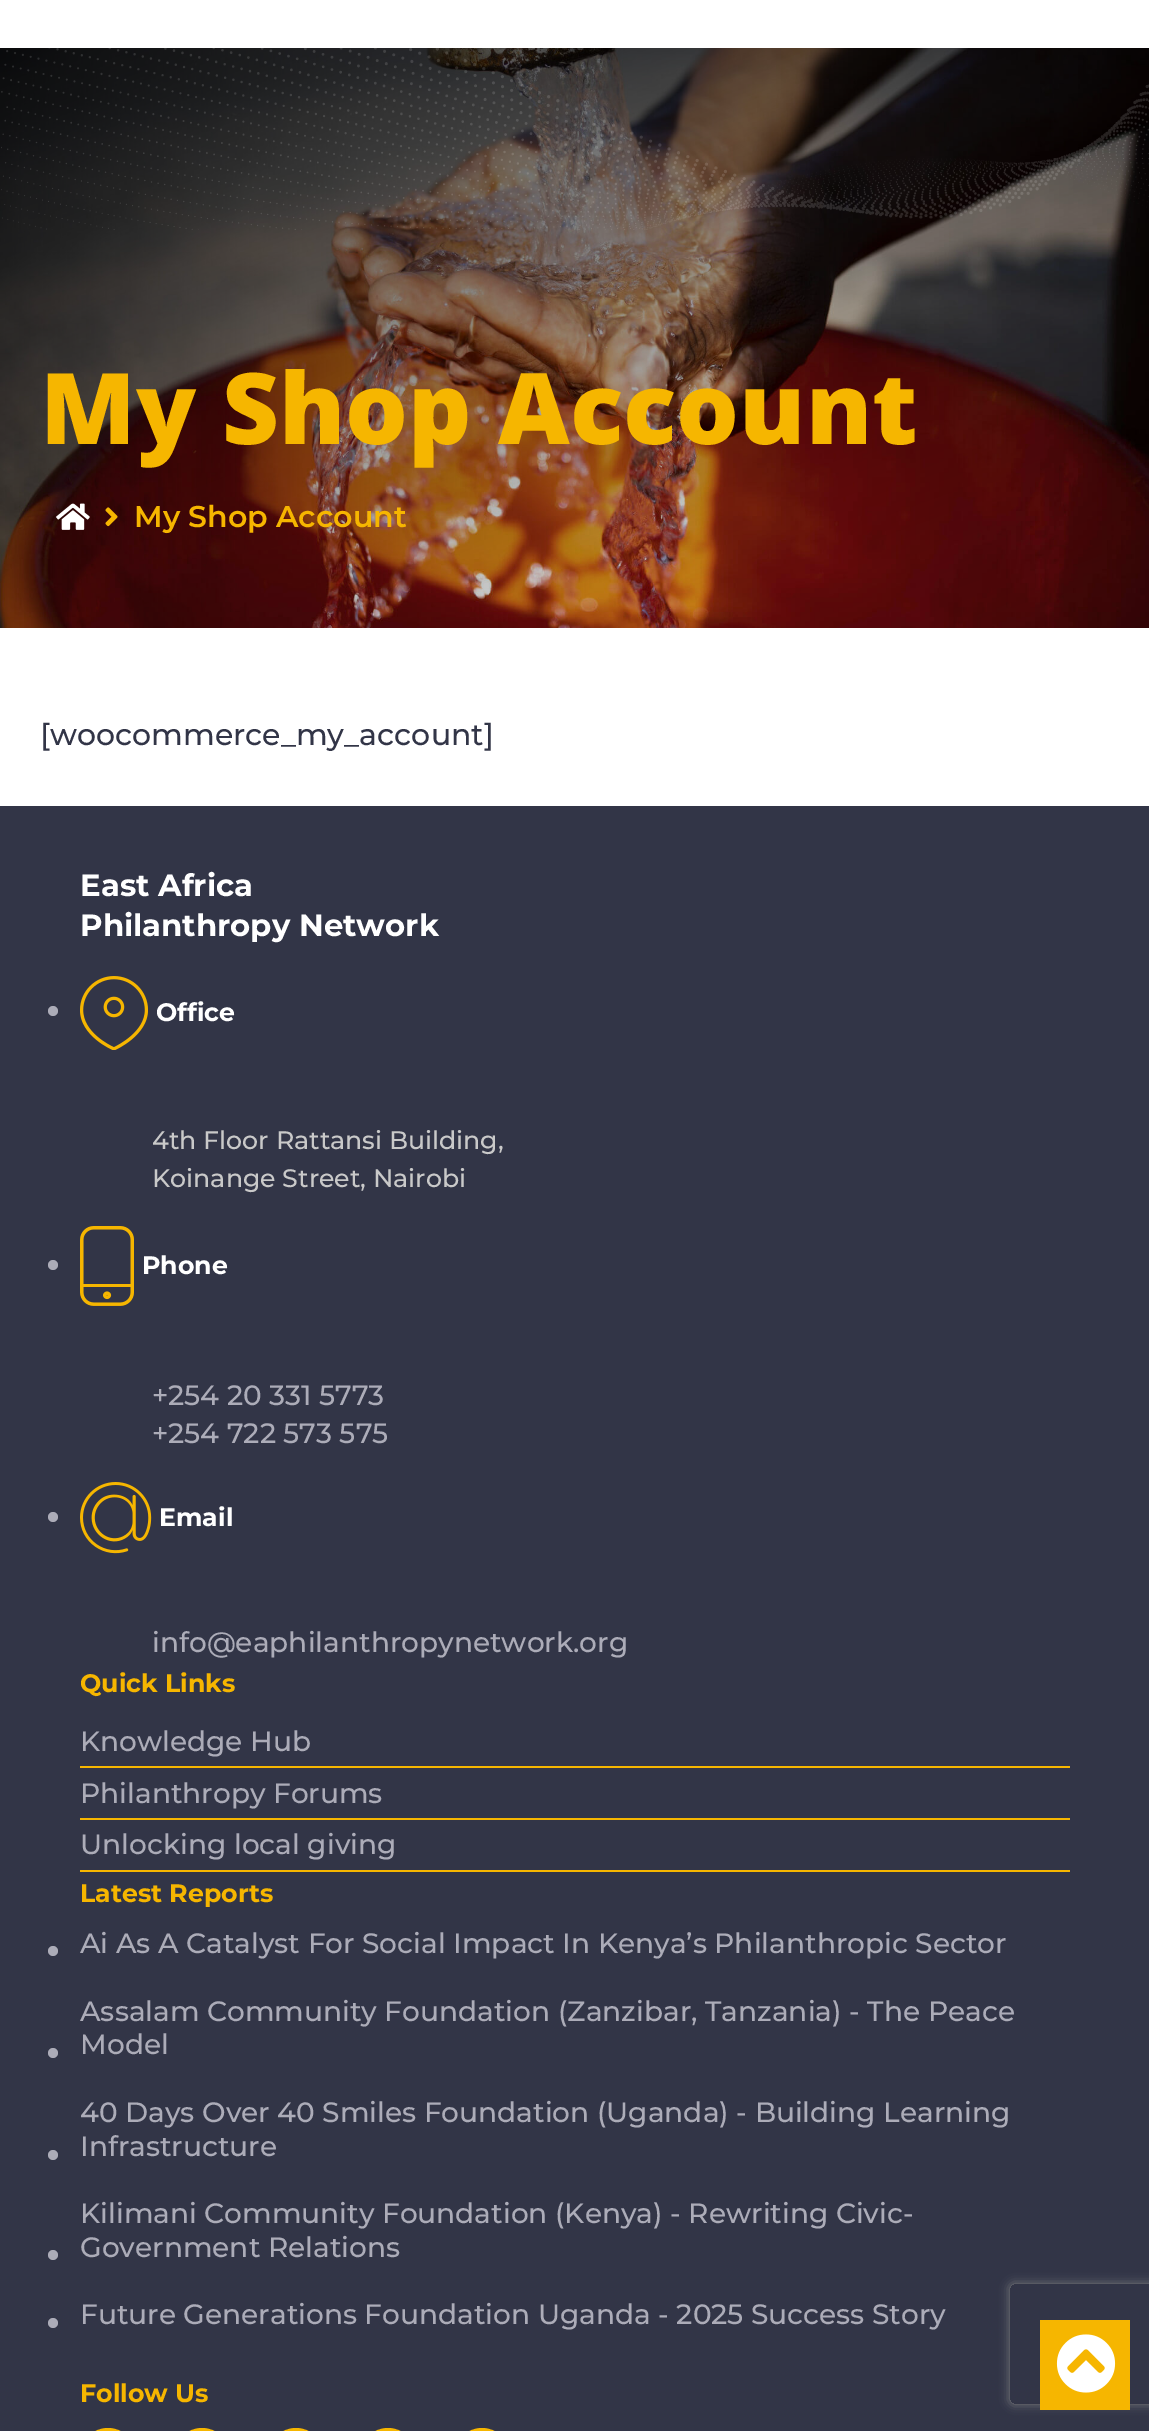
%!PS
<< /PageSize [1149 2431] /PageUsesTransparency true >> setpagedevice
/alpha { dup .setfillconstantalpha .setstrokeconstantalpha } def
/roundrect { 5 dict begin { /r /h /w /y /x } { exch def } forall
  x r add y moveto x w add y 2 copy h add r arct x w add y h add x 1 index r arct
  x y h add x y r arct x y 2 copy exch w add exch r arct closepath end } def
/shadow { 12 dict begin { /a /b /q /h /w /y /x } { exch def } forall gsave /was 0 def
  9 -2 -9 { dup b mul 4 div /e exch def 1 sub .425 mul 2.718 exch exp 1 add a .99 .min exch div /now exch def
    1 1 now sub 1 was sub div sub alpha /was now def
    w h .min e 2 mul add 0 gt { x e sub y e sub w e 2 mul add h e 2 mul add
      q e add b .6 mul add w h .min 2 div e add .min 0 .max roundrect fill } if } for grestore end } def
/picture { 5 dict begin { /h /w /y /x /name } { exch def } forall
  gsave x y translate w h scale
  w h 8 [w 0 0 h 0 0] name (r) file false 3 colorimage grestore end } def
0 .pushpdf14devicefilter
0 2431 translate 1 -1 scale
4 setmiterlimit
1 setgray
0 0 1149 2431 rectfill
(img1.rgb) 0 48 1149 580 picture
(img2.rgb) 1 48 1148 182 picture
/OpenSans-ExtraBold [99 0 0 -99 0 0] selectfont
0.965 0.714 0 setrgbcolor
40 444 moveto (My Shop Account) show
(img3.rgb) 56 503 34 27 picture
(img4.rgb) 105 507 13 20 picture
/Montserrat-SemiBold [30 0 0 -30 0 0] selectfont
134 527 moveto (My Shop Account) show
/Montserrat-Medium [30 0 0 -30 0 0] selectfont
0.196 0.208 0.278 setrgbcolor
40 745 moveto ([woocommerce_my_account]) show
0 806 1149 1625 rectfill
/Montserrat-Bold [30.75 0 0 -30.75 0 0] selectfont
1 setgray
80 896 moveto (East Africa) show
80 936 moveto (Philanthropy Network) show
0.675 0.675 0.722 setrgbcolor
newpath 53 1011 5 0 360 arc closepath fill
(img5.rgb) 80 976 68 74 picture
/Montserrat-Bold [25.25 0 0 -25.25 0 0] selectfont
1 setgray
156 1021 moveto (Office) show
/Montserrat-Medium [25.25 0 0 -25.25 0 0] selectfont
0.788 setgray
152 1149 moveto (4th Floor Rattansi Building,) show
152 1187 moveto (Koinange Street, Nairobi) show
0.675 0.675 0.722 setrgbcolor
newpath 53 1265 5 0 360 arc closepath fill
(img6.rgb) 80 1226 54 80 picture
/Montserrat-Bold [25.25 0 0 -25.25 0 0] selectfont
1 setgray
142 1274 moveto (Phone) show
/Montserrat-Medium [28 0 0 -28 0 0] selectfont
0.675 0.675 0.722 setrgbcolor
152 1405 moveto (+254 20 331 5773) show
152 1443 moveto (+254 722 573 575) show
newpath 53 1517 5 0 360 arc closepath fill
(img7.rgb) 80 1482 72 72 picture
/Montserrat-Bold [25.25 0 0 -25.25 0 0] selectfont
1 setgray
159 1526 moveto (Email) show
/Montserrat-Medium [28 0 0 -28 0 0] selectfont
0.675 0.675 0.722 setrgbcolor
152 1652 moveto (info@eaphilanthropynetwork.org) show
/Montserrat-Bold [25.25 0 0 -25.25 0 0] selectfont
0.965 0.714 0 setrgbcolor
80 1692 moveto (Quick Links) show
80 1766 990 2 rectfill
/Montserrat-Medium [28 0 0 -28 0 0] selectfont
0.675 0.675 0.722 setrgbcolor
80 1751 moveto (Knowledge Hub) show
0.965 0.714 0 setrgbcolor
80 1818 990 2 rectfill
0.675 0.675 0.722 setrgbcolor
80 1803 moveto (Philanthropy Forums) show
0.965 0.714 0 setrgbcolor
80 1870 990 2 rectfill
0.675 0.675 0.722 setrgbcolor
80 1854 moveto (Unlocking local giving) show
/Montserrat-Bold [25.25 0 0 -25.25 0 0] selectfont
0.965 0.714 0 setrgbcolor
80 1902 moveto (Latest Reports) show
0.675 0.675 0.722 setrgbcolor
newpath 53 1951 5 0 360 arc closepath fill
/Montserrat-Medium [28 0 0 -28 0 0] selectfont
80 1953 moveto (Ai As A Catalyst For Social Impact In Kenya’s Philanthropic Sector) show
newpath 53 2053 5 0 360 arc closepath fill
80 2021 moveto (Assalam Community Foundation \(Zanzibar, Tanzania\) - The Peace) show
80 2054 moveto (Model) show
newpath 53 2155 5 0 360 arc closepath fill
80 2122 moveto (40 Days Over 40 Smiles Foundation \(Uganda\) - Building Learning) show
80 2156 moveto (Infrastructure) show
newpath 53 2255 5 0 360 arc closepath fill
80 2223 moveto (Kilimani Community Foundation \(Kenya\) - Rewriting Civic-) show
80 2257 moveto (Government Relations) show
newpath 53 2323 5 0 360 arc closepath fill
80 2324 moveto (Future Generations Foundation Uganda - 2025 Success Story) show
/Montserrat-Bold [25.25 0 0 -25.25 0 0] selectfont
0.965 0.714 0 setrgbcolor
80 2402 moveto (Follow Us) show
81 2429 54 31 27 roundrect gsave fill grestore
2 setlinewidth
stroke
175 2429 54 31 27 roundrect gsave fill grestore
stroke
269 2429 54 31 27 roundrect gsave fill grestore
stroke
361 2429 54 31 27 roundrect gsave fill grestore
stroke
455 2429 54 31 27 roundrect gsave fill grestore
stroke
gsave
newpath 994 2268 moveto 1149 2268 lineto 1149 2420 lineto 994 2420 lineto closepath 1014 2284 moveto 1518 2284 lineto 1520 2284 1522 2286 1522 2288 curveto 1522 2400 lineto 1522 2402 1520 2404 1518 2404 curveto 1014 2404 lineto 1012 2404 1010 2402 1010 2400 curveto 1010 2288 lineto 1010 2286 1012 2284 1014 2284 curveto closepath eoclip newpath
0.502 setgray
1010 2284 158 120 4 5 1 shadow
grestore
1040 2320 90 90 rectfill
(img8.rgb) 1056 2334 60 59 picture
.poppdf14devicefilter showpage
